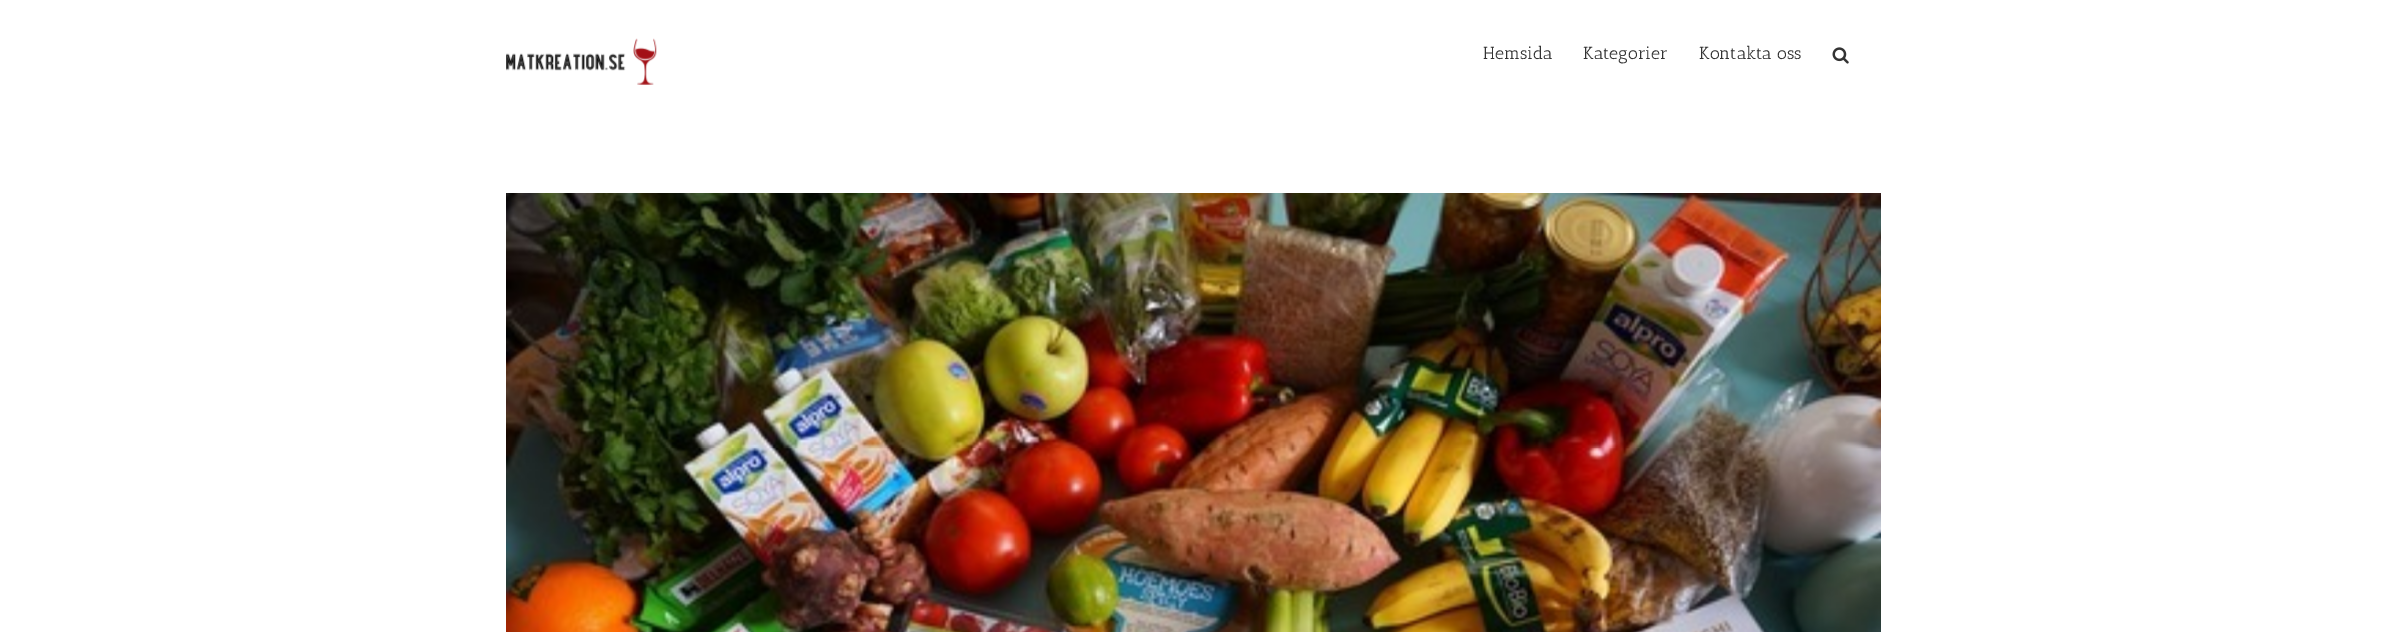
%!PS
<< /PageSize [2386 632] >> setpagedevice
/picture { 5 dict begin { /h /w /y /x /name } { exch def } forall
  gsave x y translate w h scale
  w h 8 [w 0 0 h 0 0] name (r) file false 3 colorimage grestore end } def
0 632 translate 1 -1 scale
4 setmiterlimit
1 setgray
0 0 2386 632 rectfill
(img1.rgb) 506 38 151 47 picture
/AnticSlab-Regular [17.5 0 0 -17.5 0 0] selectfont
0.2 setgray
1483 59 moveto (Hemsida) show
1583 59 moveto (Kategorier) show
1699 59 moveto (Kontakta oss) show
(img2.rgb) 1832 47 17 17 picture
(img3.rgb) 506 193 1375 439 picture
showpage
